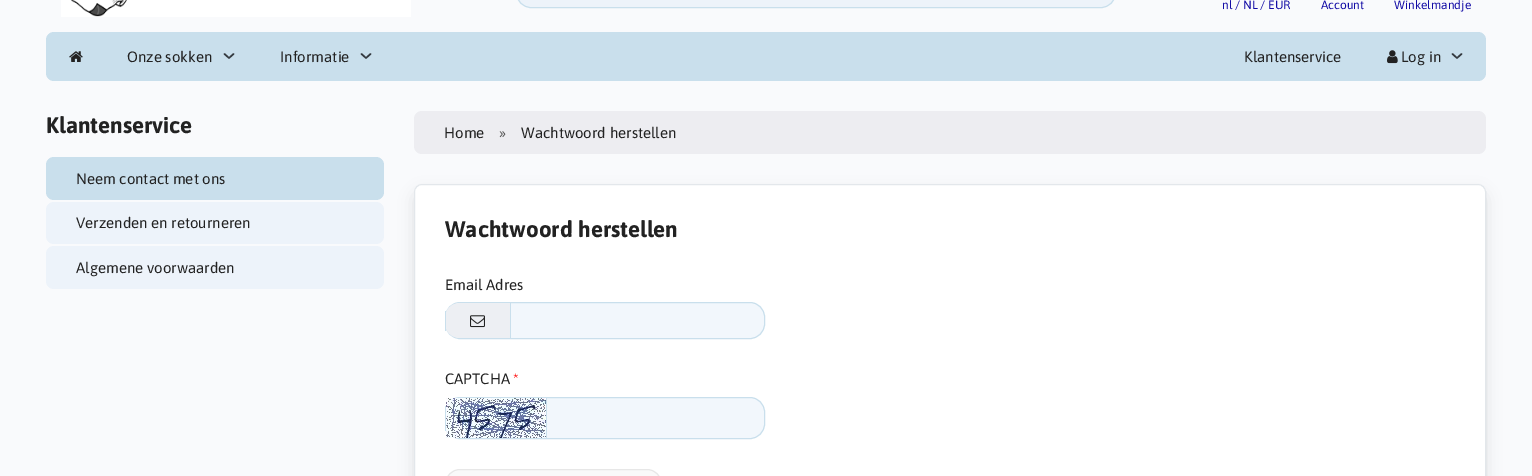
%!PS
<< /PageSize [1532 476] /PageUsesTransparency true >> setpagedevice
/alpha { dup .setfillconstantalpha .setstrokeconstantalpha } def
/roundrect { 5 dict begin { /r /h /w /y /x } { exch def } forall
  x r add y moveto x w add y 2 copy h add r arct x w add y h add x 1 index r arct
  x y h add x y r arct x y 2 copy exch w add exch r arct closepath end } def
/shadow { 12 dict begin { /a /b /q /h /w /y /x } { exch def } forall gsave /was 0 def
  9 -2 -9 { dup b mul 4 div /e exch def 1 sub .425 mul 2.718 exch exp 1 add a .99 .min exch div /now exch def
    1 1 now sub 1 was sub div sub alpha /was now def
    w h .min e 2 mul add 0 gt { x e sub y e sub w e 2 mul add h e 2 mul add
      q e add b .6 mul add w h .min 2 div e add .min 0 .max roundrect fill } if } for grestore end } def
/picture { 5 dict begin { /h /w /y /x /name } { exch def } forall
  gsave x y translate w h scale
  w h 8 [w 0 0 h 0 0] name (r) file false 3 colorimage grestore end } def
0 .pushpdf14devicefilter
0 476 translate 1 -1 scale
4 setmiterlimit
0.976 0.98 0.988 setrgbcolor
0 0 1532 476 rectfill
0.788 0.875 0.925 setrgbcolor
46 32 1440 49 8 roundrect fill
(img1.rgb) 61 0 350 17 picture
0.929 0.953 0.98 setrgbcolor
516.5 -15.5 599 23 14.5 roundrect gsave fill grestore
0.788 0.875 0.925 setrgbcolor
stroke
/Asap-Regular [12 0 0 -12 0 0] selectfont
0.071 0.043 0.647 setrgbcolor
1222 9 moveto (nl / NL / EUR) show
1321 9 moveto (Account) show
1394 9 moveto (Winkelmandje) show
(img2.rgb) 69 51 14 11 picture
0.204 0.227 0.251 setrgbcolor
1.5 setlinewidth
1 setlinecap
1 setlinejoin
newpath 224.5 54 moveto 229 58 lineto 233.5 54 lineto stroke
/Asap-Regular [15 0 0 -15 0 0] selectfont
0.133 setgray
127 62 moveto (Onze sokken) show
0.204 0.227 0.251 setrgbcolor
newpath 361.5 54 moveto 366 58 lineto 370.5 54 lineto stroke
0.133 setgray
280 62 moveto (Informatie) show
1244 62 moveto (Klantenservice) show
0.204 0.227 0.251 setrgbcolor
newpath 1452.5 54 moveto 1457 58 lineto 1461.5 54 lineto stroke
(img3.rgb) 1387 50 11 14 picture
0.133 setgray
1401 62 moveto (Log in) show
/Asap-Bold [22.5 0 0 -22.5 0 0] selectfont
46 133 moveto (Klantenservice) show
0.788 0.875 0.925 setrgbcolor
46 157 338 43 8 roundrect fill
/Asap-Regular [15 0 0 -15 0 0] selectfont
0.133 setgray
76 184 moveto (Neem contact met ons) show
0.929 0.953 0.98 setrgbcolor
46 202 338 42 8 roundrect fill
0.133 setgray
76 228 moveto (Verzenden en retourneren) show
0.929 0.953 0.98 setrgbcolor
46 246 338 43 8 roundrect fill
0.133 setgray
76 273 moveto (Algemene voorwaarden) show
0.929 0.929 0.945 setrgbcolor
414 111 1072 43 8 roundrect fill
0.133 setgray
444 138 moveto (Home) show
0.333 setgray
499 138 moveto (») show
0.133 setgray
521 138 moveto (Wachtwoord herstellen) show
0 setgray
414 192 1072 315 8 7.5 0.1 shadow
1 setgray
414 184 1072 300 8 roundrect fill
0.15 alpha
0.263 0.38 0.486 setrgbcolor
1 setlinewidth
0 setlinecap
0 setlinejoin
414.5 184.5 1071 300 7.5 roundrect stroke
/Asap-Bold [22.5 0 0 -22.5 0 0] selectfont
1 alpha
0.133 setgray
445 237 moveto (Wachtwoord herstellen) show
/Asap-Regular [15 0 0 -15 0 0] selectfont
445 290 moveto (Email Adres) show
0.949 0.969 0.988 setrgbcolor
445.5 302.5 319 36 14.5 roundrect gsave fill grestore
0.788 0.875 0.925 setrgbcolor
stroke
0.929 0.937 0.953 setrgbcolor
newpath 460 303 moveto 511 303 lineto 511 338 lineto 460 338 lineto 451.5 338 445 331.5 445 323 curveto 445 318 lineto 445 309.5 451.5 303 460 303 curveto closepath fill
0.788 0.875 0.925 setrgbcolor
510 303 1 35 rectfill
445 311 1 20 rectfill
(img4.rgb) 470 315 15 13 picture
0.133 setgray
445 384 moveto (CAPTCHA) show
1 0 0 setrgbcolor
513 384 moveto (*) show
0.949 0.969 0.988 setrgbcolor
445.5 397.5 319 41 14.5 roundrect gsave fill grestore
0.788 0.875 0.925 setrgbcolor
stroke
546 398 1 40 rectfill
445 406 1 25 rectfill
(img5.rgb) 446 398 100 40 picture
0.976 setgray
445 469 217 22 15 roundrect fill
0.07 alpha
0 setgray
445.5 469.5 216 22 14.5 roundrect stroke
.poppdf14devicefilter showpage
